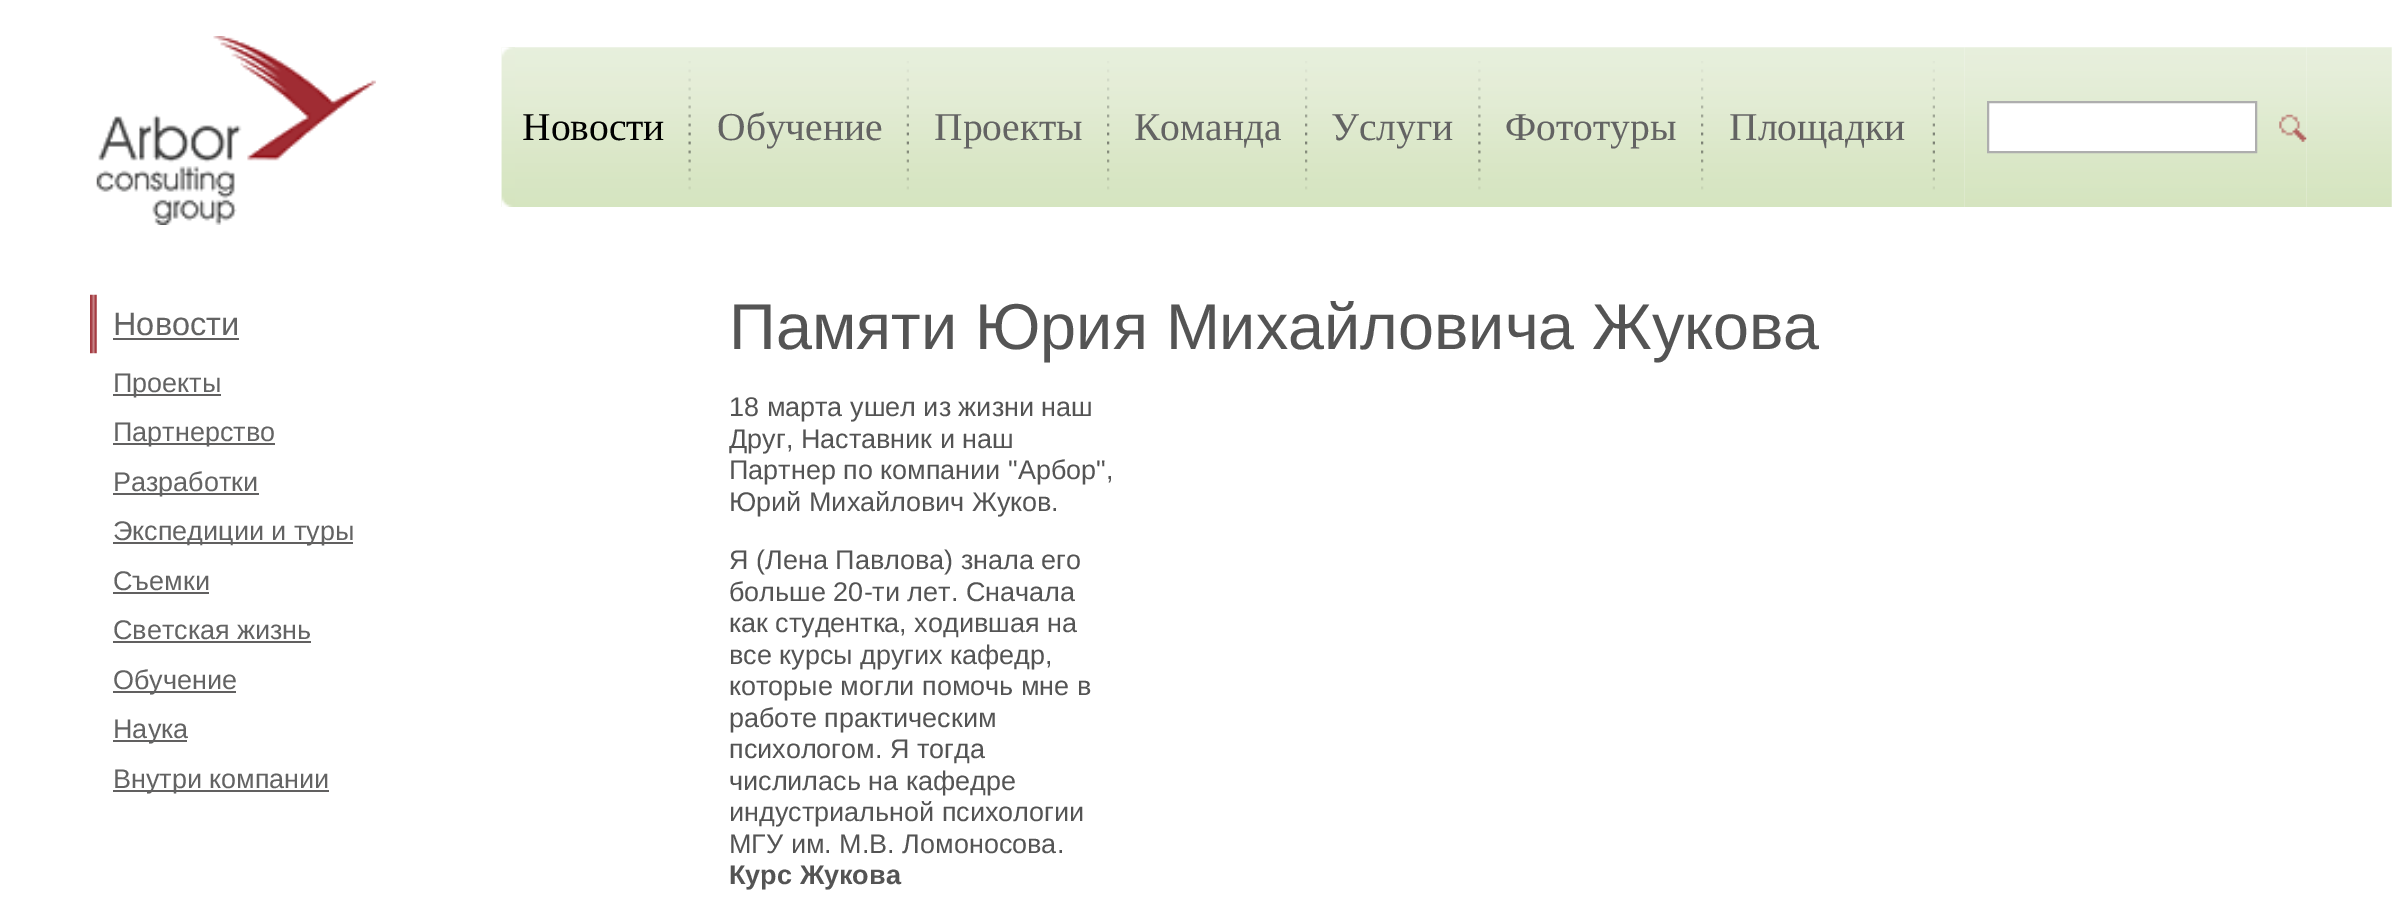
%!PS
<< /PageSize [2394 897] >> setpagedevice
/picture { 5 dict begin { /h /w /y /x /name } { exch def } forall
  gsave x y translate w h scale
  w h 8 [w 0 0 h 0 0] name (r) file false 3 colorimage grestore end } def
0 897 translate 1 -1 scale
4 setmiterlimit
1 setgray
0 0 2394 897 rectfill
(img1.rgb) 96 36 280 189 picture
(img2.rgb) 501 47 1464 160 picture
(img3.rgb) 501 47 14 160 picture
/LiberationSerif-Regular [39.5 0 0 -39.5 0 0] selectfont
0 setgray
522 140 moveto (Новости) show
(img4.rgb) 688 61 3 129 picture
0.388 setgray
717 140 moveto (Обучение) show
(img5.rgb) 906 61 3 129 picture
934 140 moveto (Проекты) show
(img6.rgb) 1107 61 3 129 picture
1134 140 moveto (Команда) show
(img6.rgb) 1305 61 3 129 picture
1331 140 moveto (Услуги) show
(img7.rgb) 1478 61 3 129 picture
1505 140 moveto (Фототуры) show
(img6.rgb) 1701 61 3 129 picture
1729 140 moveto (Площадки) show
(img5.rgb) 1932 61 3 129 picture
(img8.rgb) 1964 47 343 160 picture
1 setgray
newpath 1988 102 moveto 2256 102 lineto 2256 152 lineto 1988 152 lineto closepath gsave fill grestore
0.682 setgray
2 setlinewidth
stroke
(img10.rgb) 2306 47 86 160 picture
(img9.rgb) 2279 114 28 28 picture
(img11.rgb) 90 294 7 60 picture
/LiberationSans-Regular [32.5 0 0 -32.5 0 0] selectfont
0.388 setgray
113 335 moveto (Новости) show
0.38 0.376 0.376 setrgbcolor
113 338 126 2 rectfill
113 394 108 2 rectfill
/LiberationSans-Regular [27 0 0 -27 0 0] selectfont
0.388 setgray
113 392 moveto (Проекты) show
0.38 0.376 0.376 setrgbcolor
113 443 162 2 rectfill
0.388 setgray
113 441 moveto (Партнерство) show
0.38 0.376 0.376 setrgbcolor
113 493 146 2 rectfill
0.388 setgray
113 491 moveto (Разработки) show
0.38 0.376 0.376 setrgbcolor
113 542 240 2 rectfill
0.388 setgray
113 540 moveto (Экспедиции и туры) show
113 590 moveto (Съемки) show
0.38 0.376 0.376 setrgbcolor
113 592 96 2 rectfill
0.388 setgray
113 639 moveto (Светская жизнь) show
0.38 0.376 0.376 setrgbcolor
113 641 198 2 rectfill
113 691 123 2 rectfill
0.388 setgray
113 689 moveto (Обучение) show
0.38 0.376 0.376 setrgbcolor
113 740 74 2 rectfill
0.388 setgray
113 738 moveto (Наука) show
0.38 0.376 0.376 setrgbcolor
113 790 216 2 rectfill
0.388 setgray
113 788 moveto (Внутри компании) show
/LiberationSans-Regular [64.75 0 0 -64.75 0 0] selectfont
0.329 setgray
729 349 moveto (Памяти Юрия Михайловича Жукова) show
/LiberationSans-Regular [27 0 0 -27 0 0] selectfont
729 416 moveto (18 марта ушел из жизни наш) show
729 448 moveto (Друг, Наставник и наш) show
729 479 moveto (Партнер по компании "Арбор",) show
729 511 moveto (Юрий Михайлович Жуков.) show
729 569 moveto (Я \(Лена Павлова\) знала его) show
729 601 moveto (больше 20-ти лет. Сначала) show
729 632 moveto (как студентка, ходившая на) show
729 664 moveto (все курсы других кафедр,) show
729 695 moveto (которые могли помочь мне в) show
729 727 moveto (работе практическим) show
729 758 moveto (психологом. Я тогда) show
729 790 moveto (числилась на кафедре) show
729 821 moveto (индустриальной психологии) show
729 853 moveto (МГУ им. М.В. Ломоносова.) show
/LiberationSans-Bold [27 0 0 -27 0 0] selectfont
729 884 moveto (Курс Жукова) show
showpage
